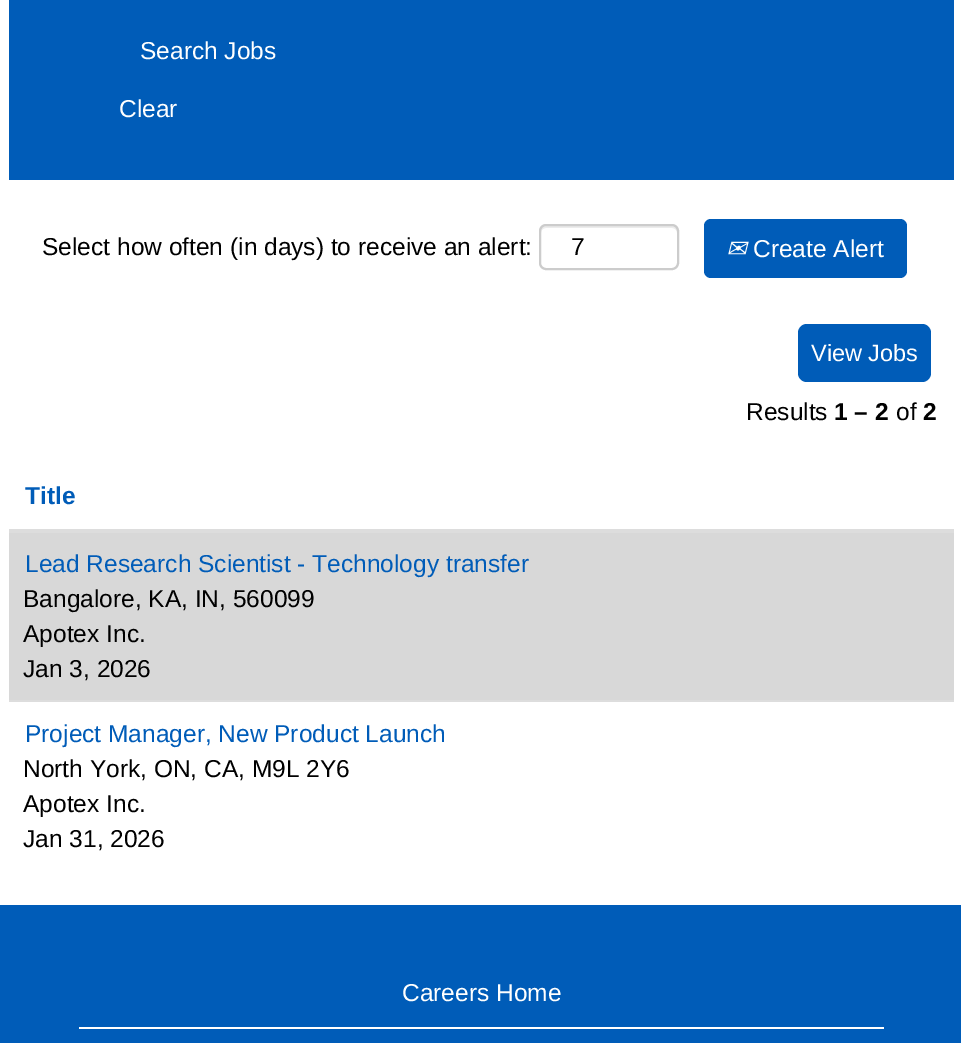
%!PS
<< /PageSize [961 1043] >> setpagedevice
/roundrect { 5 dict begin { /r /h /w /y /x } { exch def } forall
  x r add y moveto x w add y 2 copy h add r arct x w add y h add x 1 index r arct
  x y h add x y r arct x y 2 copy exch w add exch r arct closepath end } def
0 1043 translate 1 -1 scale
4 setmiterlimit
1 setgray
0 0 961 1043 rectfill
0 0.361 0.722 setrgbcolor
9 0 945 180 rectfill
/LiberationSans-Regular [24.5 0 0 -24.5 0 0] selectfont
1 setgray
140 59 moveto (Search Jobs) show
119 117 moveto (Clear) show
0 setgray
42 255 moveto (Select how often \(in days\) to receive an alert:) show
0.925 setgray
newpath 546 228 moveto 672 228 lineto 675 228 677 230 677 233 curveto 677 231 lineto 677 228 675 226 672 226 curveto 546 226 lineto 543 226 541 228 541 231 curveto 541 233 lineto 541 230 543 228 546 228 curveto closepath fill
0.8 setgray
2 setlinewidth
540 225 138 44 6 roundrect stroke
0 setgray
571 255 moveto (7) show
0 0.361 0.722 setrgbcolor
704 219 203 59 7 roundrect fill
/DejaVuSans-Italic [24.5 0 0 -24.5 0 0] selectfont
1 setgray
726 257 moveto (✉) show
/LiberationSans-Regular [24.5 0 0 -24.5 0 0] selectfont
753 257 moveto (Create Alert) show
0 0.361 0.722 setrgbcolor
798 324 133 58 9 roundrect fill
/LiberationSans-Regular [23.5 0 0 -23.5 0 0] selectfont
1 setgray
811 361 moveto (View Jobs) show
/LiberationSans-Regular [24.5 0 0 -24.5 0 0] selectfont
0 setgray
746 420 moveto (Results) show
/LiberationSans-Bold [24.5 0 0 -24.5 0 0] selectfont
834 420 moveto (1 – 2) show
/LiberationSans-Regular [24.5 0 0 -24.5 0 0] selectfont
896 420 moveto (of) show
/LiberationSans-Bold [24.5 0 0 -24.5 0 0] selectfont
923 420 moveto (2) show
0.867 setgray
9 529 945 4 rectfill
0 0.361 0.722 setrgbcolor
25 504 moveto (Title) show
0.847 setgray
9 533 945 167 rectfill
/LiberationSans-Regular [24.5 0 0 -24.5 0 0] selectfont
0 0.361 0.722 setrgbcolor
25 572 moveto (Lead Research Scientist - Technology transfer) show
0 setgray
23 607 moveto (Bangalore, KA, IN, 560099) show
23 642 moveto (Apotex Inc.) show
23 677 moveto (Jan 3, 2026) show
0.867 setgray
9 700 945 2 rectfill
0 0.361 0.722 setrgbcolor
25 742 moveto (Project Manager, New Product Launch) show
0 setgray
23 777 moveto (North York, ON, CA, M9L 2Y6) show
23 812 moveto (Apotex Inc.) show
23 847 moveto (Jan 31, 2026) show
0 0.361 0.722 setrgbcolor
0 905 961 138 rectfill
1 setgray
79 1027 805 2 rectfill
402 1001 moveto (Careers Home) show
showpage
